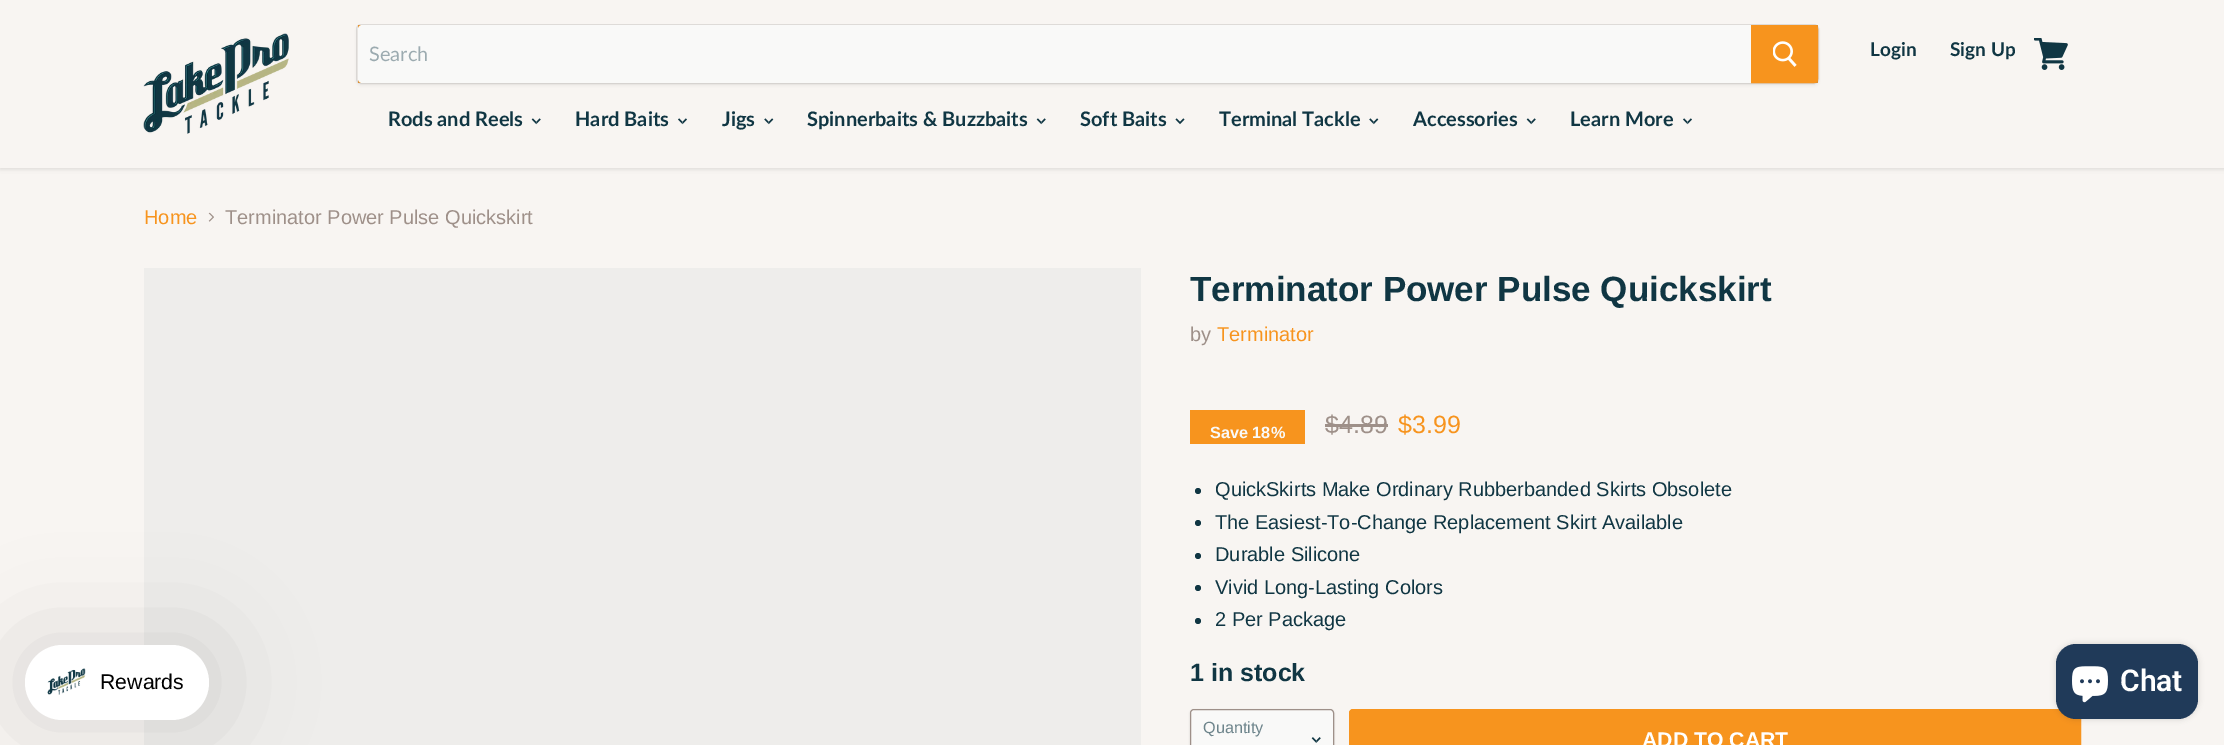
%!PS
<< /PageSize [2224 745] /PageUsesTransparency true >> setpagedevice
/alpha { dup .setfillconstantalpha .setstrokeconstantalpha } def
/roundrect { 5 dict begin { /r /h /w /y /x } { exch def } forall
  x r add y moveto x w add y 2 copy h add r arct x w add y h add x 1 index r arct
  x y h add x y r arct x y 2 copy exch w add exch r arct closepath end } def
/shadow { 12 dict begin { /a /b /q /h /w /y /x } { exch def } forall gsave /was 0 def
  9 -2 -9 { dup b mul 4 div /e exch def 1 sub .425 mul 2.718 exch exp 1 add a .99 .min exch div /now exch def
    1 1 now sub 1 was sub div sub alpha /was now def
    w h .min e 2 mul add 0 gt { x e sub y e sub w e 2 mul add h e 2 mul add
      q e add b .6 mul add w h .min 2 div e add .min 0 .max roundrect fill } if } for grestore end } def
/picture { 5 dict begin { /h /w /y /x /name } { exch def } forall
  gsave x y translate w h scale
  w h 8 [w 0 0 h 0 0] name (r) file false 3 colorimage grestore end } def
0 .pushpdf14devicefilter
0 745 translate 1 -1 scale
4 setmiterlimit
0.973 0.961 0.949 setrgbcolor
0 0 2224 745 rectfill
0.486 0.478 0.475 setrgbcolor
0 1 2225 168 0 2.5 0.25 shadow
0.973 0.961 0.949 setrgbcolor
0 0 2224 168 rectfill
(img1.rgb) 143 33 146 101 picture
0.969 0.58 0.118 setrgbcolor
358 25 1460 58 rectfill
0.486 0.478 0.475 setrgbcolor
356 26 1463 60 5 2 0.11 shadow
0.2 alpha
356.5 24.5 1462 59 4.5 roundrect stroke
1 alpha
0.976 0.976 0.973 setrgbcolor
newpath 362 25 moveto 1751 25 lineto 1751 83 lineto 362 83 lineto 360 83 358 81 358 79 curveto 358 29 lineto 358 27 360 25 362 25 curveto closepath fill
/Lato-Regular [20 0 0 -20 0 0] selectfont
0.612 0.671 0.69 setrgbcolor
369 61 moveto (Search) show
0.969 0.58 0.118 setrgbcolor
newpath 1751.5 25.5 moveto 1814 25.5 lineto 1816 25.5 1817.5 27 1817.5 29 curveto 1817.5 79 lineto 1817.5 81 1816 82.5 1814 82.5 curveto 1751.5 82.5 lineto closepath gsave fill grestore
stroke
(img2.rgb) 1773 41 24 26 picture
/Lato-Bold [19 0 0 -19 0 0] selectfont
0.063 0.212 0.263 setrgbcolor
1870 56 moveto (Login) show
1950 56 moveto (Sign Up) show
(img3.rgb) 2034 38 34 32 picture
/Lato-Bold [20 0 0 -20 0 0] selectfont
388 126 moveto (Rods and Reels) show
(img4.rgb) 531 118 10 7 picture
575 126 moveto (Hard Baits) show
(img5.rgb) 678 118 9 7 picture
722 126 moveto (Jigs) show
(img6.rgb) 764 118 10 7 picture
807 126 moveto (Spinnerbaits & Buzzbaits) show
(img4.rgb) 1036 118 10 7 picture
1080 126 moveto (Soft Baits) show
(img7.rgb) 1175 118 10 7 picture
1219 126 moveto (Terminal Tackle) show
(img6.rgb) 1369 118 10 7 picture
1413 126 moveto (Accessories) show
(img4.rgb) 1526 118 10 7 picture
1570 126 moveto (Learn More) show
(img5.rgb) 1683 118 9 7 picture
0.933 0.929 0.922 setrgbcolor
144 268 997 477 rectfill
0 setgray
25 645 184 75 37.5 50 0.12 shadow
1 setgray
25 645 184 75 37.5 roundrect fill
(img8.rgb) 47 668 39 27 picture
/LiberationSans-Regular [21.25 0 0 -21.25 0 0] selectfont
0 setgray
100 689 moveto (Rewards) show
/LiberationSans-Regular [20 0 0 -20 0 0] selectfont
0.969 0.58 0.118 setrgbcolor
144 224 moveto (Home) show
(img9.rgb) 208 212 6 10 picture
0.62 0.565 0.537 setrgbcolor
225 224 moveto (Terminator Power Pulse Quickskirt) show
/LiberationSans-Bold [35 0 0 -35 0 0] selectfont
0.063 0.212 0.263 setrgbcolor
1190 301 moveto (Terminator Power Pulse Quickskirt) show
/LiberationSans-Regular [20 0 0 -20 0 0] selectfont
0.62 0.565 0.537 setrgbcolor
1190 341 moveto (by) show
0.969 0.58 0.118 setrgbcolor
1217 341 moveto (Terminator) show
1190 410 115 34 rectfill
/LiberationSans-Bold [16.25 0 0 -16.25 0 0] selectfont
0.976 0.976 0.973 setrgbcolor
1210 438 moveto (Save 18%) show
/LiberationSans-Regular [25 0 0 -25 0 0] selectfont
0.62 0.565 0.537 setrgbcolor
1325 433 moveto ($4.89) show
1325 424 63 3 rectfill
0.969 0.58 0.118 setrgbcolor
1398 433 moveto ($3.99) show
0.063 0.212 0.263 setrgbcolor
newpath 1198 491 3 0 360 arc closepath fill
/LiberationSans-Regular [20 0 0 -20 0 0] selectfont
1215 496 moveto (QuickSkirts Make Ordinary Rubberbanded Skirts Obsolete) show
newpath 1198 523 3 0 360 arc closepath fill
1215 529 moveto (The Easiest-To-Change Replacement Skirt Available) show
newpath 1198 556 3 0 360 arc closepath fill
1215 561 moveto (Durable Silicone) show
newpath 1198 588 3 0 360 arc closepath fill
1215 594 moveto (Vivid Long-Lasting Colors) show
newpath 1198 621 3 0 360 arc closepath fill
1215 626 moveto (2 Per Package) show
/LiberationSans-Bold [25 0 0 -25 0 0] selectfont
1190 681 moveto (1 in stock) show
0 setgray
1190 710 144 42 4 1 0.15 shadow
0.976 0.976 0.973 setrgbcolor
1190.5 709.5 143 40 3.5 roundrect gsave fill grestore
0.62 0.565 0.537 setrgbcolor
stroke
/LiberationSans-Regular [16.25 0 0 -16.25 0 0] selectfont
0.427 0.518 0.545 setrgbcolor
1203 733 moveto (Quantity) show
(img10.rgb) 1311 737 10 6 picture
0.969 0.58 0.118 setrgbcolor
1349.5 709.5 731 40 3.5 roundrect gsave fill grestore
stroke
/LiberationSans-Bold [21.25 0 0 -21.25 0 0] selectfont
1 setgray
1642 747 moveto (ADD TO CART) show
0 setgray
2056 644 142 75 20 3 0.15 shadow
0.125 0.227 0.349 setrgbcolor
2056 644 142 75 20 roundrect fill
(img11.rgb) 2072 666 36 37 picture
/Roboto-SemiBold [30 0 0 -30 0 0] selectfont
1 setgray
2120 691 moveto (Chat) show
.poppdf14devicefilter showpage
